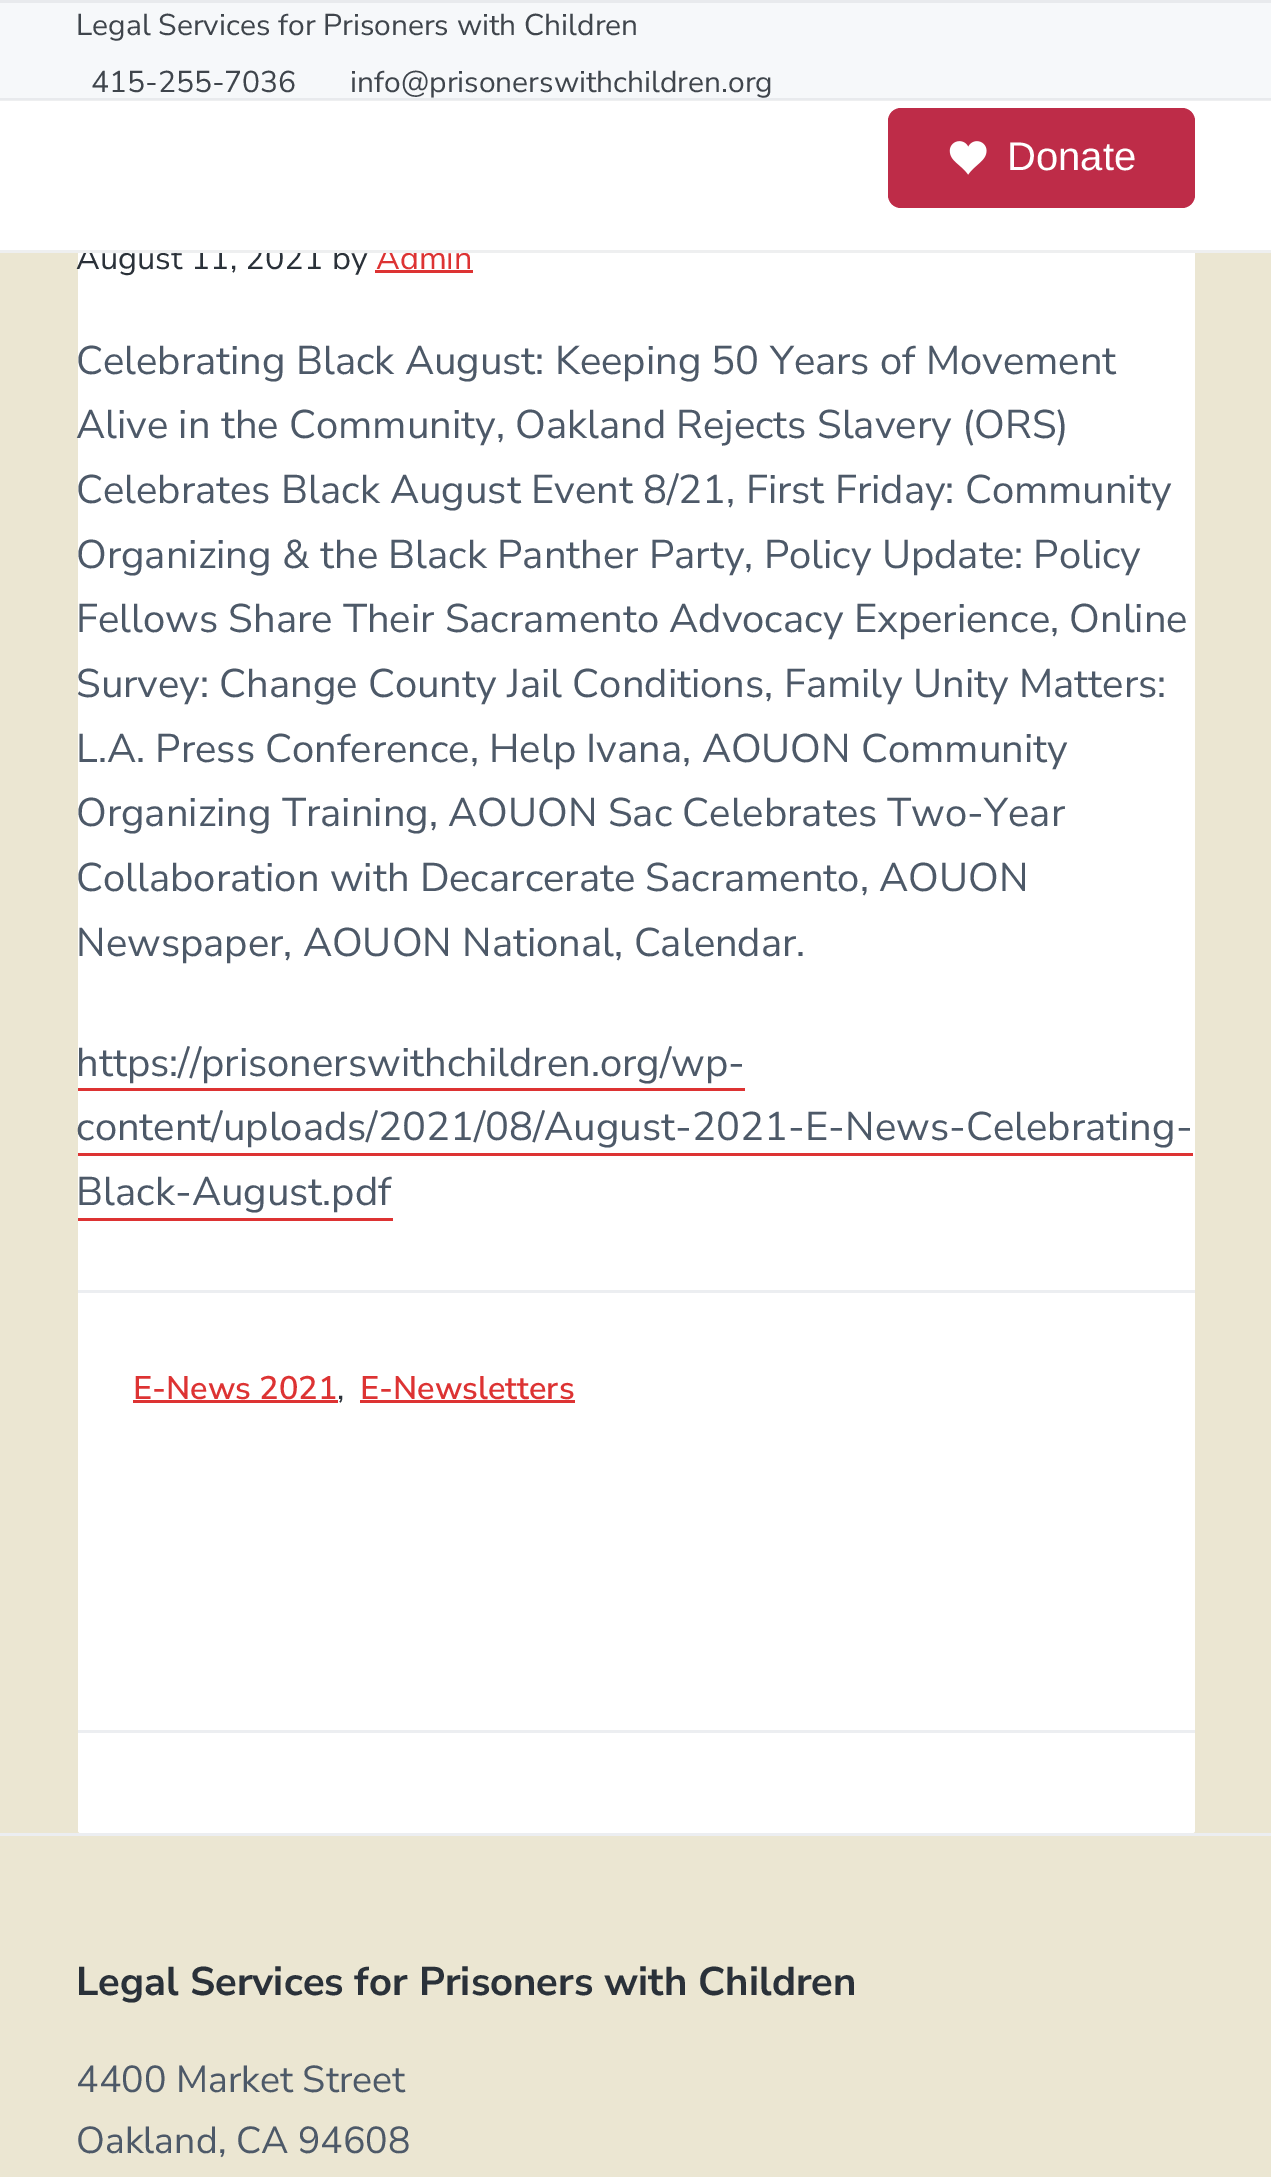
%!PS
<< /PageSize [1271 2177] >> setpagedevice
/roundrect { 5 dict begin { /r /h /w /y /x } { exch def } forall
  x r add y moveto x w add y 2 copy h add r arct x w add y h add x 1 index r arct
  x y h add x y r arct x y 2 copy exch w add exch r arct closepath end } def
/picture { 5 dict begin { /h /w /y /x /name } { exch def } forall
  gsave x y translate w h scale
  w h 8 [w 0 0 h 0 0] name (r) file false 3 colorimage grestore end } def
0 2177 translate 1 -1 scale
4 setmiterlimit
0.922 0.902 0.824 setrgbcolor
0 0 1271 2177 rectfill
1 setgray
78 133 1117 1700 2.5 roundrect fill
/NunitoSans-Regular [32.5 0 0 -32.5 0 0] selectfont
0.165 0.192 0.224 setrgbcolor
76 269 moveto (August 11, 2021 by) show
0.867 0.2 0.2 setrgbcolor
376 269 moveto (Admin) show
1 setgray
0 101 1271 149 rectfill
0.933 0.937 0.941 setrgbcolor
0 100 1271 1 rectfill
0 250 1271 3 rectfill
0.965 0.973 0.98 setrgbcolor
0 3 1271 95 rectfill
0.91 0.918 0.929 setrgbcolor
0 98 1271 2 rectfill
0 0 1271 3 rectfill
/NunitoSans-Regular [30 0 0 -30 0 0] selectfont
0.247 0.271 0.298 setrgbcolor
76 35 moveto (Legal Services for Prisoners with Children) show
91 92 moveto (415-255-7036) show
350 92 moveto (info@prisonerswithchildren.org) show
0.745 0.173 0.282 setrgbcolor
888 108 307 100 13 roundrect fill
(img1.rgb) 949 141 38 34 picture
/LiberationSans-Regular [40 0 0 -40 0 0] selectfont
1 setgray
1007 170 moveto (Donate) show
0.867 0.2 0.2 setrgbcolor
375 270 98 3 rectfill
/NunitoSans-Regular [40 0 0 -40 0 0] selectfont
0.302 0.349 0.408 setrgbcolor
76 374 moveto (Celebrating Black August: Keeping 50 Years of Movement) show
76 438 moveto (Alive in the Community, Oakland Rejects Slavery \(ORS\)) show
76 503 moveto (Celebrates Black August Event 8/21, First Friday: Community) show
76 568 moveto (Organizing & the Black Panther Party, Policy Update: Policy) show
76 632 moveto (Fellows Share Their Sacramento Advocacy Experience, Online) show
76 697 moveto (Survey: Change County Jail Conditions, Family Unity Matters:) show
76 762 moveto (L.A. Press Conference, Help Ivana, AOUON Community) show
76 826 moveto (Organizing Training, AOUON Sac Celebrates Two-Year) show
76 891 moveto (Collaboration with Decarcerate Sacramento, AOUON) show
76 956 moveto (Newspaper, AOUON National, Calendar.) show
76 1076 moveto (https://prisonerswithchildren.org/wp-) show
0.867 0.2 0.2 setrgbcolor
78 1088 667 3 rectfill
0.302 0.349 0.408 setrgbcolor
76 1140 moveto (content/uploads/2021/08/August-2021-E-News-Celebrating-) show
0.867 0.2 0.2 setrgbcolor
78 1153 1115 3 rectfill
0.302 0.349 0.408 setrgbcolor
76 1205 moveto (Black-August.pdf) show
0.867 0.2 0.2 setrgbcolor
78 1218 315 3 rectfill
0.925 0.933 0.945 setrgbcolor
78 1290 1117 3 rectfill
78 1730 1117 3 rectfill
/NunitoSans-SemiBold [32.5 0 0 -32.5 0 0] selectfont
0.867 0.2 0.2 setrgbcolor
133 1399 moveto (E-News 2021) show
133 1400 205 3 rectfill
/NunitoSans-Regular [32.5 0 0 -32.5 0 0] selectfont
0.165 0.192 0.224 setrgbcolor
337 1399 moveto (,) show
/NunitoSans-SemiBold [32.5 0 0 -32.5 0 0] selectfont
0.867 0.2 0.2 setrgbcolor
360 1399 moveto (E-Newsletters) show
360 1400 215 3 rectfill
0.925 0.933 0.945 setrgbcolor
0 1833 1271 3 rectfill
/NunitoSans-Bold [40 0 0 -40 0 0] selectfont
0.165 0.192 0.224 setrgbcolor
76 1995 moveto (Legal Services for Prisoners with Children) show
/NunitoSans-Regular [37.5 0 0 -37.5 0 0] selectfont
0.302 0.349 0.408 setrgbcolor
76 2092 moveto (4400 Market Street) show
76 2153 moveto (Oakland, CA 94608) show
showpage
